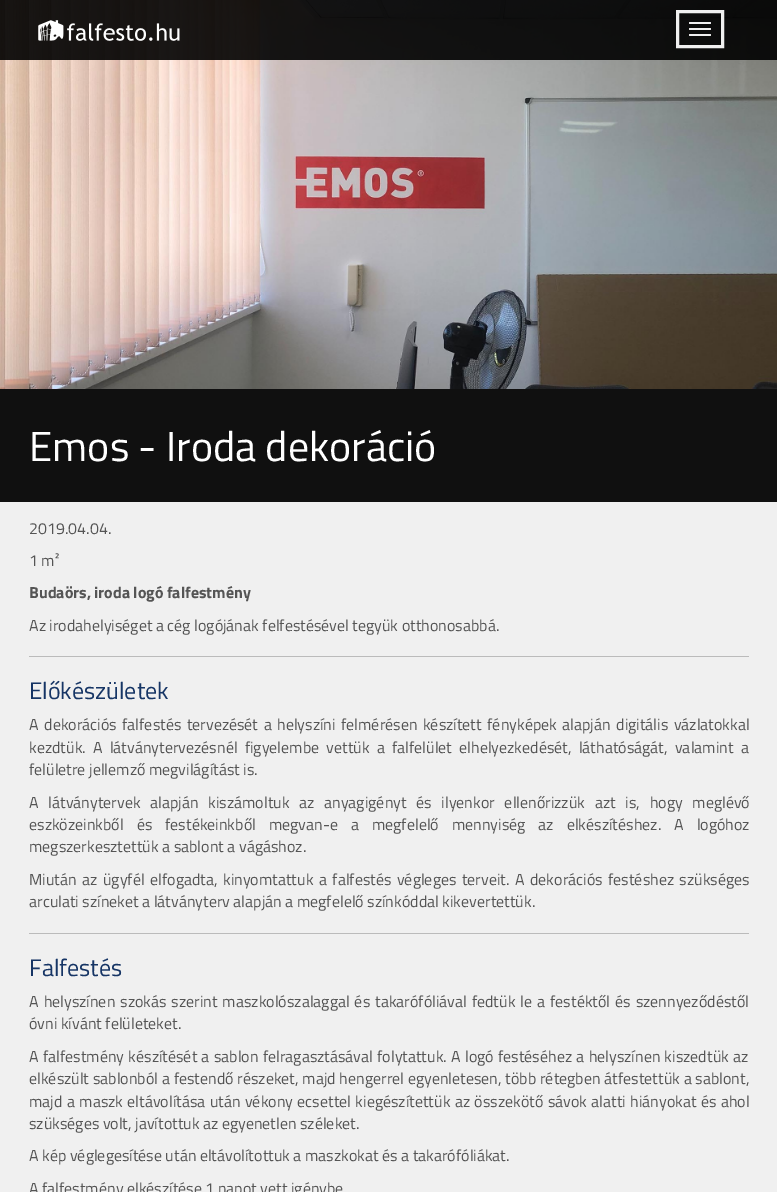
%!PS
<< /PageSize [777 1192] /PageUsesTransparency true >> setpagedevice
/alpha { dup .setfillconstantalpha .setstrokeconstantalpha } def
/roundrect { 5 dict begin { /r /h /w /y /x } { exch def } forall
  x r add y moveto x w add y 2 copy h add r arct x w add y h add x 1 index r arct
  x y h add x y r arct x y 2 copy exch w add exch r arct closepath end } def
/picture { 5 dict begin { /h /w /y /x /name } { exch def } forall
  gsave x y translate w h scale
  w h 8 [w 0 0 h 0 0] name (r) file false 3 colorimage grestore end } def
0 .pushpdf14devicefilter
0 1192 translate 1 -1 scale
4 setmiterlimit
0.941 setgray
0 0 777 1192 rectfill
(img1.rgb) 0 0 777 389 picture
0.9 alpha
0 setgray
0 0 777 60 rectfill
1 alpha
(img2.rgb) 38 20 142 21 picture
0.941 setgray
3 setlinewidth
677.5 11.5 45 35 rectstroke
689 22 22 2 1 roundrect fill
689 28 22 2 1 roundrect fill
689 34 22 2 1 roundrect fill
0.063 setgray
0 389 777 113 rectfill
/TitilliumWeb-Regular [42 0 0 -42 0 0] selectfont
1 setgray
29 461 moveto (Emos - Iroda dekoráció) show
/TitilliumWeb-Regular [16 0 0 -16 0 0] selectfont
0.333 setgray
29 534 moveto (2019.04.04.) show
29 566 moveto (1 m²) show
/TitilliumWeb-Bold [16 0 0 -16 0 0] selectfont
29 598 moveto (Budaörs, iroda logó falfestmény) show
/TitilliumWeb-Regular [16 0 0 -16 0 0] selectfont
29 631 moveto (Az irodahelyiséget a cég logójának felfestésével tegyük otthonosabbá.) show
0.733 setgray
29 656 720 1 rectfill
/TitilliumWeb-Regular [24 0 0 -24 0 0] selectfont
0.086 0.208 0.396 setrgbcolor
29 699 moveto (Előkészületek) show
/TitilliumWeb-Regular [16 0 0 -16 0 0] selectfont
0.333 setgray
29 730 moveto 2 0 32 (A dekorációs falfestés tervezését a helyszíni felmérésen készített fényképek alapján digitális vázlatokkal) widthshow
29 753 moveto 3.75 0 32 (kezdtük. A látványtervezésnél figyelembe vettük a falfelület elhelyezkedését, láthatóságát, valamint a) widthshow
29 775 moveto (felületre jellemző megvilágítást is.) show
29 808 moveto 6.25 0 32 (A látványtervek alapján kiszámoltuk az anyagigényt és ilyenkor ellenőrizzük azt is, hogy meglévő) widthshow
29 830 moveto 9.5 0 32 (eszközeinkből és festékeinkből megvan-e a megfelelő mennyiség az elkészítéshez. A logóhoz) widthshow
29 852 moveto (megszerkesztettük a sablont a vágáshoz.) show
29 885 moveto 2 0 32 (Miután az ügyfél elfogadta, kinyomtattuk a falfestés végleges terveit. A dekorációs festéshez szükséges) widthshow
29 907 moveto (arculati színeket a látványterv alapján a megfelelő színkóddal kikevertettük.) show
0.733 setgray
29 933 720 1 rectfill
/TitilliumWeb-Regular [24 0 0 -24 0 0] selectfont
0.086 0.208 0.396 setrgbcolor
29 976 moveto (Falfestés) show
/TitilliumWeb-Regular [16 0 0 -16 0 0] selectfont
0.333 setgray
29 1007 moveto 1.5 0 32 (A helyszínen szokás szerint maszkolószalaggal és takarófóliával fedtük le a festéktől és szennyeződéstől) widthshow
29 1029 moveto (óvni kívánt felületeket.) show
29 1062 moveto 0.8 0 32 (A falfestmény készítését a sablon felragasztásával folytattuk. A logó festéséhez a helyszínen kiszedtük az) widthshow
29 1084 moveto 0.25 0 32 (elkészült sablonból a festendő részeket, majd hengerrel egyenletesen, több rétegben átfestettük a sablont,) widthshow
29 1107 moveto 0.9 0 32 (majd a maszk eltávolítása után vékony ecsettel kiegészítettük az összekötő sávok alatti hiányokat és ahol) widthshow
29 1129 moveto (szükséges volt, javítottuk az egyenetlen széleket.) show
29 1161 moveto (A kép véglegesítése után eltávolítottuk a maszkokat és a takarófóliákat.) show
29 1194 moveto (A falfestmény elkészítése 1 napot vett igénybe) show
.poppdf14devicefilter showpage
